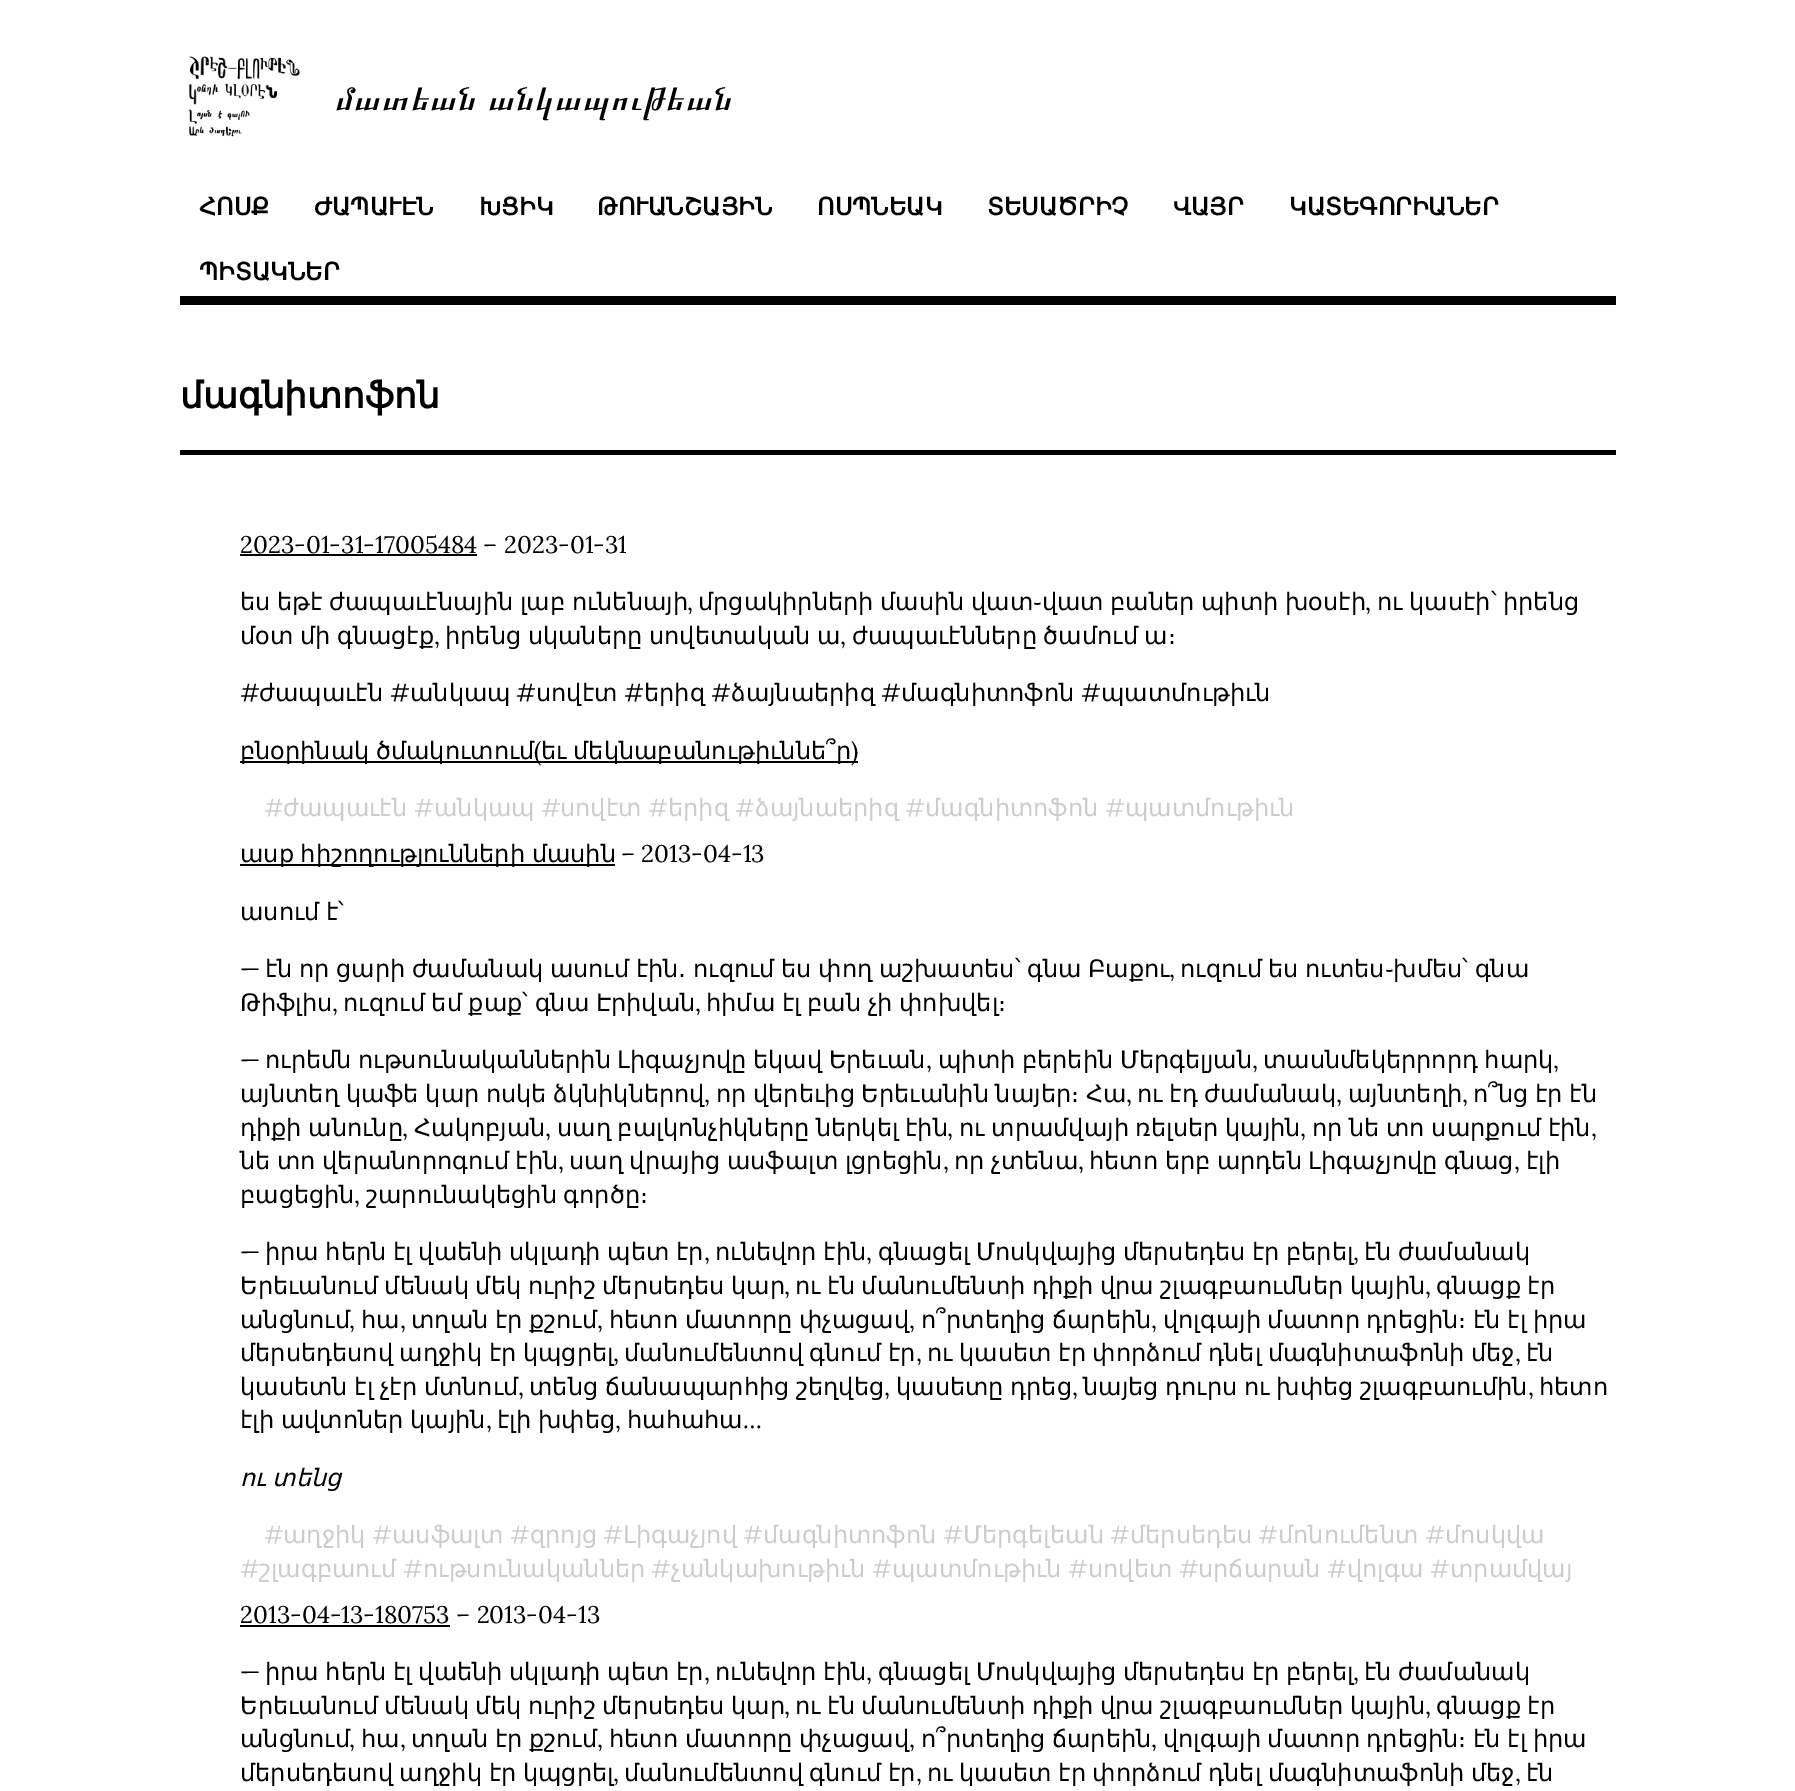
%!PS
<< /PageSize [1795 1791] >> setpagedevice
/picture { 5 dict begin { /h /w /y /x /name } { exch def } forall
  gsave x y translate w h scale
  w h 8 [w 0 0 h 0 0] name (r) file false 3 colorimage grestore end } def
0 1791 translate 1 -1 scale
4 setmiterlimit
1 setgray
0 0 1795 1791 rectfill
(img1.rgb) 188 56 112 81 picture
/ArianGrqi-Regular [36 0 0 -36 0 0] selectfont
0 setgray
335 110 moveto (մատեան անկապութեան) show
/DejaVuSans-Bold [24 0 0 -24 0 0] selectfont
199 215 moveto (ՀՈՍՔ) show
314 215 moveto (ԺԱՊԱՒԷՆ) show
479 215 moveto (ԽՑԻԿ) show
597 215 moveto (ԹՈՒԱՆՇԱՅԻՆ) show
817 215 moveto (ՈՍՊՆԵԱԿ) show
987 215 moveto (ՏԵՍԱԾՐԻՉ) show
1173 215 moveto (ՎԱՅՐ) show
1289 215 moveto (ԿԱՏԵԳՈՐԻԱՆԵՐ) show
199 280 moveto (ՊԻՏԱԿՆԵՐ) show
180 296 1436 9 rectfill
/DejaVuSans-Bold [36 0 0 -36 0 0] selectfont
180 408 moveto (մագնիտոֆոն) show
180 450 1436 5 rectfill
/Lora-Regular [24 0 0 -24 0 0] selectfont
240 553 moveto (2023-01-31-17005484 – 2023-01-31) show
240 554 237 2 rectfill
/DejaVuSans-Regular [24 0 0 -24 0 0] selectfont
240 610 moveto -1 0 32 (ես եթէ ժապաւէնային լաբ ունենայի) widthshow
/Lora-Regular [24 0 0 -24 0 0] selectfont
687 610 moveto (,) show
/DejaVuSans-Regular [24 0 0 -24 0 0] selectfont
698 610 moveto -1 0 32 (մրցակիրների մասին վատ֊վատ բաներ պիտի խօսէի) widthshow
/Lora-Regular [24 0 0 -24 0 0] selectfont
1365 610 moveto (,) show
/DejaVuSans-Regular [24 0 0 -24 0 0] selectfont
1377 610 moveto -1 0 32 (ու կասէի՝ իրենց) widthshow
240 644 moveto -1 0 32 (մօտ մի գնացէք) widthshow
/Lora-Regular [24 0 0 -24 0 0] selectfont
434 644 moveto (,) show
/DejaVuSans-Regular [24 0 0 -24 0 0] selectfont
445 644 moveto -1 0 32 (իրենց սկաները սովետական ա) widthshow
/Lora-Regular [24 0 0 -24 0 0] selectfont
840 644 moveto (,) show
/DejaVuSans-Regular [24 0 0 -24 0 0] selectfont
852 644 moveto -1 0 32 (ժապաւէնները ծամում ա։) widthshow
/Lora-Regular [24 0 0 -24 0 0] selectfont
240 701 moveto (#) show
/DejaVuSans-Regular [24 0 0 -24 0 0] selectfont
259 701 moveto (ժապաւէն) show
/Lora-Regular [24 0 0 -24 0 0] selectfont
390 701 moveto (#) show
/DejaVuSans-Regular [24 0 0 -24 0 0] selectfont
410 701 moveto (անկապ) show
/Lora-Regular [24 0 0 -24 0 0] selectfont
516 701 moveto (#) show
/DejaVuSans-Regular [24 0 0 -24 0 0] selectfont
536 701 moveto (սովէտ) show
/Lora-Regular [24 0 0 -24 0 0] selectfont
624 701 moveto (#) show
/DejaVuSans-Regular [24 0 0 -24 0 0] selectfont
644 701 moveto (երիզ) show
/Lora-Regular [24 0 0 -24 0 0] selectfont
711 701 moveto (#) show
/DejaVuSans-Regular [24 0 0 -24 0 0] selectfont
731 701 moveto (ձայնաերիզ) show
/Lora-Regular [24 0 0 -24 0 0] selectfont
881 701 moveto (#) show
/DejaVuSans-Regular [24 0 0 -24 0 0] selectfont
901 701 moveto (մագնիտոֆոն) show
/Lora-Regular [24 0 0 -24 0 0] selectfont
1081 701 moveto (#) show
/DejaVuSans-Regular [24 0 0 -24 0 0] selectfont
1101 701 moveto (պատմութիւն) show
240 761 618 2 rectfill
240 759 moveto -1 0 32 (բնօրինակ ծմակուտում) widthshow
/Lora-Regular [24 0 0 -24 0 0] selectfont
534 759 moveto (\() show
/DejaVuSans-Regular [24 0 0 -24 0 0] selectfont
541 759 moveto -1 0 32 (եւ մեկնաբանութիւննե՞ր) widthshow
/Lora-Regular [24 0 0 -24 0 0] selectfont
851 759 moveto (\)) show
0.8 setgray
264 816 moveto (#) show
/DejaVuSans-Regular [24 0 0 -24 0 0] selectfont
283 816 moveto (ժապաւէն) show
/Lora-Regular [24 0 0 -24 0 0] selectfont
414 816 moveto (#) show
/DejaVuSans-Regular [24 0 0 -24 0 0] selectfont
434 816 moveto (անկապ) show
/Lora-Regular [24 0 0 -24 0 0] selectfont
541 816 moveto (#) show
/DejaVuSans-Regular [24 0 0 -24 0 0] selectfont
560 816 moveto (սովէտ) show
/Lora-Regular [24 0 0 -24 0 0] selectfont
648 816 moveto (#) show
/DejaVuSans-Regular [24 0 0 -24 0 0] selectfont
668 816 moveto (երիզ) show
/Lora-Regular [24 0 0 -24 0 0] selectfont
735 816 moveto (#) show
/DejaVuSans-Regular [24 0 0 -24 0 0] selectfont
755 816 moveto (ձայնաերիզ) show
/Lora-Regular [24 0 0 -24 0 0] selectfont
905 816 moveto (#) show
/DejaVuSans-Regular [24 0 0 -24 0 0] selectfont
925 816 moveto (մագնիտոֆոն) show
/Lora-Regular [24 0 0 -24 0 0] selectfont
1105 816 moveto (#) show
/DejaVuSans-Regular [24 0 0 -24 0 0] selectfont
1125 816 moveto (պատմութիւն) show
0 setgray
240 864 375 2 rectfill
240 862 moveto -1 0 32 (ասք հիշողությունների մասին) widthshow
/Lora-Regular [24 0 0 -24 0 0] selectfont
621 862 moveto (– 2013-04-13) show
/DejaVuSans-Regular [24 0 0 -24 0 0] selectfont
240 920 moveto -1 0 32 (ասում է՝) widthshow
/Lora-Regular [24 0 0 -24 0 0] selectfont
240 977 moveto (—) show
/DejaVuSans-Regular [24 0 0 -24 0 0] selectfont
265 977 moveto -1.1 0 32 (էն որ ցարի ժամանակ ասում էին․ ուզում ես փող աշխատես՝ գնա Բաքու) widthshow
1180 977 moveto -1.1 0 32 (ուզում ես ուտես֊խմես՝ գնա) widthshow
/Lora-Regular [24 0 0 -24 0 0] selectfont
1169 977 moveto (,) show
/DejaVuSans-Regular [24 0 0 -24 0 0] selectfont
240 1011 moveto (Թիֆլիս) show
/Lora-Regular [24 0 0 -24 0 0] selectfont
332 1011 moveto (,) show
/DejaVuSans-Regular [24 0 0 -24 0 0] selectfont
343 1011 moveto -1 0 32 (ուզում եմ քաք՝ գնա Էրիվան) widthshow
/Lora-Regular [24 0 0 -24 0 0] selectfont
695 1011 moveto (,) show
/DejaVuSans-Regular [24 0 0 -24 0 0] selectfont
706 1011 moveto -1 0 32 (հիմա էլ բան չի փոխվել։) widthshow
/Lora-Regular [24 0 0 -24 0 0] selectfont
240 1068 moveto (—) show
/DejaVuSans-Regular [24 0 0 -24 0 0] selectfont
265 1068 moveto -1 0 32 (ուրեմն ութսունականներին Լիգաչյովը եկավ Երեւան) widthshow
938 1068 moveto -1 0 32 (պիտի բերեին Մերգելյան) widthshow
1263 1068 moveto -1 0 32 (տասնմեկերրորդ հարկ) widthshow
/Lora-Regular [24 0 0 -24 0 0] selectfont
926 1068 moveto (,) show
1252 1068 moveto (,) show
1553 1068 moveto (,) show
/DejaVuSans-Regular [24 0 0 -24 0 0] selectfont
240 1102 moveto -1 0 32 (այնտեղ կաֆե կար ոսկե ձկնիկներով) widthshow
/Lora-Regular [24 0 0 -24 0 0] selectfont
704 1102 moveto (,) show
/DejaVuSans-Regular [24 0 0 -24 0 0] selectfont
716 1102 moveto -1 0 32 (որ վերեւից Երեւանին նայեր։ Հա) widthshow
/Lora-Regular [24 0 0 -24 0 0] selectfont
1126 1102 moveto (,) show
/DejaVuSans-Regular [24 0 0 -24 0 0] selectfont
1137 1102 moveto -1 0 32 (ու էդ ժամանակ) widthshow
/Lora-Regular [24 0 0 -24 0 0] selectfont
1336 1102 moveto (,) show
/DejaVuSans-Regular [24 0 0 -24 0 0] selectfont
1348 1102 moveto (այնտեղի) show
/Lora-Regular [24 0 0 -24 0 0] selectfont
1462 1102 moveto (,) show
/DejaVuSans-Regular [24 0 0 -24 0 0] selectfont
1473 1102 moveto -1 0 32 (ո՞նց էր էն) widthshow
240 1136 moveto -1 0 32 (դիքի անունը) widthshow
/Lora-Regular [24 0 0 -24 0 0] selectfont
402 1136 moveto (,) show
/DejaVuSans-Regular [24 0 0 -24 0 0] selectfont
414 1136 moveto (Հակոբյան) show
/Lora-Regular [24 0 0 -24 0 0] selectfont
545 1136 moveto (,) show
/DejaVuSans-Regular [24 0 0 -24 0 0] selectfont
557 1136 moveto -1 0 32 (սաղ բալկոնչիկները ներկել էին) widthshow
/Lora-Regular [24 0 0 -24 0 0] selectfont
947 1136 moveto (,) show
/DejaVuSans-Regular [24 0 0 -24 0 0] selectfont
959 1136 moveto -1 0 32 (ու տրամվայի ռելսեր կային) widthshow
/Lora-Regular [24 0 0 -24 0 0] selectfont
1300 1136 moveto (,) show
/DejaVuSans-Regular [24 0 0 -24 0 0] selectfont
1312 1136 moveto -1 0 32 (որ նե տո սարքում էին) widthshow
/Lora-Regular [24 0 0 -24 0 0] selectfont
1591 1136 moveto (,) show
/DejaVuSans-Regular [24 0 0 -24 0 0] selectfont
240 1169 moveto -1 0 32 (նե տո վերանորոգում էին) widthshow
/Lora-Regular [24 0 0 -24 0 0] selectfont
558 1169 moveto (,) show
/DejaVuSans-Regular [24 0 0 -24 0 0] selectfont
569 1169 moveto -1 0 32 (սաղ վրայից ասֆալտ լցրեցին) widthshow
/Lora-Regular [24 0 0 -24 0 0] selectfont
943 1169 moveto (,) show
/DejaVuSans-Regular [24 0 0 -24 0 0] selectfont
954 1169 moveto -1 0 32 (որ չտենա) widthshow
/Lora-Regular [24 0 0 -24 0 0] selectfont
1078 1169 moveto (,) show
/DejaVuSans-Regular [24 0 0 -24 0 0] selectfont
1089 1169 moveto -1 0 32 (հետո երբ արդեն Լիգաչյովը գնաց) widthshow
/Lora-Regular [24 0 0 -24 0 0] selectfont
1514 1169 moveto (,) show
/DejaVuSans-Regular [24 0 0 -24 0 0] selectfont
1526 1169 moveto (էլի) show
240 1203 moveto (բացեցին) show
/Lora-Regular [24 0 0 -24 0 0] selectfont
354 1203 moveto (,) show
/DejaVuSans-Regular [24 0 0 -24 0 0] selectfont
366 1203 moveto -1 0 32 (շարունակեցին գործը։) widthshow
/Lora-Regular [24 0 0 -24 0 0] selectfont
240 1260 moveto (—) show
/DejaVuSans-Regular [24 0 0 -24 0 0] selectfont
265 1260 moveto -1 0 32 (իրա հերն էլ վաենի սկլադի պետ էր) widthshow
715 1260 moveto -1 0 32 (ունեվոր էին) widthshow
878 1260 moveto -1 0 32 (գնացել Մոսկվայից մերսեդես էր բերել) widthshow
1364 1260 moveto -1 0 32 (էն ժամանակ) widthshow
/Lora-Regular [24 0 0 -24 0 0] selectfont
704 1260 moveto (,) show
866 1260 moveto (,) show
1353 1260 moveto (,) show
/DejaVuSans-Regular [24 0 0 -24 0 0] selectfont
240 1294 moveto -1 0 32 (Երեւանում մենակ մեկ ուրիշ մերսեդես կար) widthshow
/Lora-Regular [24 0 0 -24 0 0] selectfont
784 1294 moveto (,) show
/DejaVuSans-Regular [24 0 0 -24 0 0] selectfont
795 1294 moveto -1 0 32 (ու էն մանումենտի դիքի վրա շլագբաումներ կային) widthshow
/Lora-Regular [24 0 0 -24 0 0] selectfont
1425 1294 moveto (,) show
/DejaVuSans-Regular [24 0 0 -24 0 0] selectfont
1436 1294 moveto -1 0 32 (գնացք էր) widthshow
240 1328 moveto (անցնում) show
/Lora-Regular [24 0 0 -24 0 0] selectfont
349 1328 moveto (,) show
/DejaVuSans-Regular [24 0 0 -24 0 0] selectfont
361 1328 moveto (հա) show
/Lora-Regular [24 0 0 -24 0 0] selectfont
400 1328 moveto (,) show
/DejaVuSans-Regular [24 0 0 -24 0 0] selectfont
411 1328 moveto -1 0 32 (տղան էր քշում) widthshow
/Lora-Regular [24 0 0 -24 0 0] selectfont
597 1328 moveto (,) show
/DejaVuSans-Regular [24 0 0 -24 0 0] selectfont
609 1328 moveto -1 0 32 (հետո մատորը փչացավ) widthshow
/Lora-Regular [24 0 0 -24 0 0] selectfont
909 1328 moveto (,) show
/DejaVuSans-Regular [24 0 0 -24 0 0] selectfont
921 1328 moveto -1 0 32 (ո՞րտեղից ճարեին) widthshow
/Lora-Regular [24 0 0 -24 0 0] selectfont
1151 1328 moveto (,) show
/DejaVuSans-Regular [24 0 0 -24 0 0] selectfont
1163 1328 moveto -1 0 32 (վոլգայի մատոր դրեցին։ էն էլ իրա) widthshow
240 1361 moveto -1 0 32 (մերսեդեսով աղջիկ էր կպցրել) widthshow
/Lora-Regular [24 0 0 -24 0 0] selectfont
613 1361 moveto (,) show
/DejaVuSans-Regular [24 0 0 -24 0 0] selectfont
624 1361 moveto -1 0 32 (մանումենտով գնում էր) widthshow
/Lora-Regular [24 0 0 -24 0 0] selectfont
916 1361 moveto (,) show
/DejaVuSans-Regular [24 0 0 -24 0 0] selectfont
927 1361 moveto -1 0 32 (ու կասետ էր փորձում դնել մագնիտաֆոնի մեջ) widthshow
/Lora-Regular [24 0 0 -24 0 0] selectfont
1515 1361 moveto (,) show
/DejaVuSans-Regular [24 0 0 -24 0 0] selectfont
1526 1361 moveto (էն) show
240 1395 moveto -1 0 32 (կասետն էլ չէր մտնում) widthshow
/Lora-Regular [24 0 0 -24 0 0] selectfont
518 1395 moveto (,) show
/DejaVuSans-Regular [24 0 0 -24 0 0] selectfont
529 1395 moveto -1 0 32 (տենց ճանապարհից շեղվեց) widthshow
/Lora-Regular [24 0 0 -24 0 0] selectfont
884 1395 moveto (,) show
/DejaVuSans-Regular [24 0 0 -24 0 0] selectfont
896 1395 moveto -1 0 32 (կասետը դրեց) widthshow
/Lora-Regular [24 0 0 -24 0 0] selectfont
1072 1395 moveto (,) show
/DejaVuSans-Regular [24 0 0 -24 0 0] selectfont
1083 1395 moveto -1 0 32 (նայեց դուրս ու խփեց շլագբաումին) widthshow
/Lora-Regular [24 0 0 -24 0 0] selectfont
1528 1395 moveto (,) show
/DejaVuSans-Regular [24 0 0 -24 0 0] selectfont
1539 1395 moveto (հետո) show
240 1428 moveto -1 0 32 (էլի ավտոներ կային) widthshow
/Lora-Regular [24 0 0 -24 0 0] selectfont
486 1428 moveto (,) show
/DejaVuSans-Regular [24 0 0 -24 0 0] selectfont
497 1428 moveto -1 0 32 (էլի խփեց) widthshow
/Lora-Regular [24 0 0 -24 0 0] selectfont
615 1428 moveto (,) show
/DejaVuSans-Regular [24 0 0 -24 0 0] selectfont
627 1428 moveto (հահահա) show
/Lora-Regular [24 0 0 -24 0 0] selectfont
743 1428 moveto (…) show
/DejaVuSans-Italic [24 0 0 -24 0 0] selectfont
240 1486 moveto -1 0 32 (ու տենց) widthshow
/Lora-Regular [24 0 0 -24 0 0] selectfont
0.8 setgray
264 1543 moveto (#) show
/DejaVuSans-Regular [24 0 0 -24 0 0] selectfont
283 1543 moveto (աղջիկ) show
/Lora-Regular [24 0 0 -24 0 0] selectfont
372 1543 moveto (#) show
/DejaVuSans-Regular [24 0 0 -24 0 0] selectfont
392 1543 moveto (ասֆալտ) show
/Lora-Regular [24 0 0 -24 0 0] selectfont
510 1543 moveto (#) show
/DejaVuSans-Regular [24 0 0 -24 0 0] selectfont
530 1543 moveto (զրոյց) show
/Lora-Regular [24 0 0 -24 0 0] selectfont
603 1543 moveto (#) show
/DejaVuSans-Regular [24 0 0 -24 0 0] selectfont
623 1543 moveto (Լիգաչյով) show
/Lora-Regular [24 0 0 -24 0 0] selectfont
743 1543 moveto (#) show
/DejaVuSans-Regular [24 0 0 -24 0 0] selectfont
763 1543 moveto (մագնիտոֆոն) show
/Lora-Regular [24 0 0 -24 0 0] selectfont
943 1543 moveto (#) show
/DejaVuSans-Regular [24 0 0 -24 0 0] selectfont
963 1543 moveto (Մերգելեան) show
/Lora-Regular [24 0 0 -24 0 0] selectfont
1110 1543 moveto (#) show
/DejaVuSans-Regular [24 0 0 -24 0 0] selectfont
1130 1543 moveto (մերսեդես) show
/Lora-Regular [24 0 0 -24 0 0] selectfont
1258 1543 moveto (#) show
/DejaVuSans-Regular [24 0 0 -24 0 0] selectfont
1278 1543 moveto (մոնումենտ) show
/Lora-Regular [24 0 0 -24 0 0] selectfont
1425 1543 moveto (#) show
/DejaVuSans-Regular [24 0 0 -24 0 0] selectfont
1445 1543 moveto (մոսկվա) show
/Lora-Regular [24 0 0 -24 0 0] selectfont
240 1577 moveto (#) show
/DejaVuSans-Regular [24 0 0 -24 0 0] selectfont
259 1577 moveto (շլագբաում) show
/Lora-Regular [24 0 0 -24 0 0] selectfont
403 1577 moveto (#) show
/DejaVuSans-Regular [24 0 0 -24 0 0] selectfont
423 1577 moveto (ութսունականներ) show
/Lora-Regular [24 0 0 -24 0 0] selectfont
651 1577 moveto (#) show
/DejaVuSans-Regular [24 0 0 -24 0 0] selectfont
671 1577 moveto (չանկախութիւն) show
/Lora-Regular [24 0 0 -24 0 0] selectfont
872 1577 moveto (#) show
/DejaVuSans-Regular [24 0 0 -24 0 0] selectfont
892 1577 moveto (պատմութիւն) show
/Lora-Regular [24 0 0 -24 0 0] selectfont
1068 1577 moveto (#) show
/DejaVuSans-Regular [24 0 0 -24 0 0] selectfont
1088 1577 moveto (սովետ) show
/Lora-Regular [24 0 0 -24 0 0] selectfont
1179 1577 moveto (#) show
/DejaVuSans-Regular [24 0 0 -24 0 0] selectfont
1198 1577 moveto (սրճարան) show
/Lora-Regular [24 0 0 -24 0 0] selectfont
1327 1577 moveto (#) show
/DejaVuSans-Regular [24 0 0 -24 0 0] selectfont
1347 1577 moveto (վոլգա) show
/Lora-Regular [24 0 0 -24 0 0] selectfont
1430 1577 moveto (#) show
/DejaVuSans-Regular [24 0 0 -24 0 0] selectfont
1450 1577 moveto (տրամվայ) show
/Lora-Regular [24 0 0 -24 0 0] selectfont
0 setgray
240 1623 moveto (2013-04-13-180753 – 2013-04-13) show
240 1625 210 2 rectfill
240 1680 moveto (—) show
/DejaVuSans-Regular [24 0 0 -24 0 0] selectfont
265 1680 moveto -1 0 32 (իրա հերն էլ վաենի սկլադի պետ էր) widthshow
715 1680 moveto -1 0 32 (ունեվոր էին) widthshow
878 1680 moveto -1 0 32 (գնացել Մոսկվայից մերսեդես էր բերել) widthshow
1364 1680 moveto -1 0 32 (էն ժամանակ) widthshow
/Lora-Regular [24 0 0 -24 0 0] selectfont
704 1680 moveto (,) show
866 1680 moveto (,) show
1353 1680 moveto (,) show
/DejaVuSans-Regular [24 0 0 -24 0 0] selectfont
240 1714 moveto -1 0 32 (Երեւանում մենակ մեկ ուրիշ մերսեդես կար) widthshow
/Lora-Regular [24 0 0 -24 0 0] selectfont
784 1714 moveto (,) show
/DejaVuSans-Regular [24 0 0 -24 0 0] selectfont
795 1714 moveto -1 0 32 (ու էն մանումենտի դիքի վրա շլագբաումներ կային) widthshow
/Lora-Regular [24 0 0 -24 0 0] selectfont
1425 1714 moveto (,) show
/DejaVuSans-Regular [24 0 0 -24 0 0] selectfont
1436 1714 moveto -1 0 32 (գնացք էր) widthshow
240 1747 moveto (անցնում) show
/Lora-Regular [24 0 0 -24 0 0] selectfont
349 1747 moveto (,) show
/DejaVuSans-Regular [24 0 0 -24 0 0] selectfont
361 1747 moveto (հա) show
/Lora-Regular [24 0 0 -24 0 0] selectfont
400 1747 moveto (,) show
/DejaVuSans-Regular [24 0 0 -24 0 0] selectfont
411 1747 moveto -1 0 32 (տղան էր քշում) widthshow
/Lora-Regular [24 0 0 -24 0 0] selectfont
597 1747 moveto (,) show
/DejaVuSans-Regular [24 0 0 -24 0 0] selectfont
609 1747 moveto -1 0 32 (հետո մատորը փչացավ) widthshow
/Lora-Regular [24 0 0 -24 0 0] selectfont
909 1747 moveto (,) show
/DejaVuSans-Regular [24 0 0 -24 0 0] selectfont
921 1747 moveto -1 0 32 (ո՞րտեղից ճարեին) widthshow
/Lora-Regular [24 0 0 -24 0 0] selectfont
1151 1747 moveto (,) show
/DejaVuSans-Regular [24 0 0 -24 0 0] selectfont
1163 1747 moveto -1 0 32 (վոլգայի մատոր դրեցին։ էն էլ իրա) widthshow
240 1781 moveto -1 0 32 (մերսեդեսով աղջիկ էր կպցրել) widthshow
/Lora-Regular [24 0 0 -24 0 0] selectfont
613 1781 moveto (,) show
/DejaVuSans-Regular [24 0 0 -24 0 0] selectfont
624 1781 moveto -1 0 32 (մանումենտով գնում էր) widthshow
/Lora-Regular [24 0 0 -24 0 0] selectfont
916 1781 moveto (,) show
/DejaVuSans-Regular [24 0 0 -24 0 0] selectfont
927 1781 moveto -1 0 32 (ու կասետ էր փորձում դնել մագնիտաֆոնի մեջ) widthshow
/Lora-Regular [24 0 0 -24 0 0] selectfont
1515 1781 moveto (,) show
/DejaVuSans-Regular [24 0 0 -24 0 0] selectfont
1526 1781 moveto (էն) show
showpage
